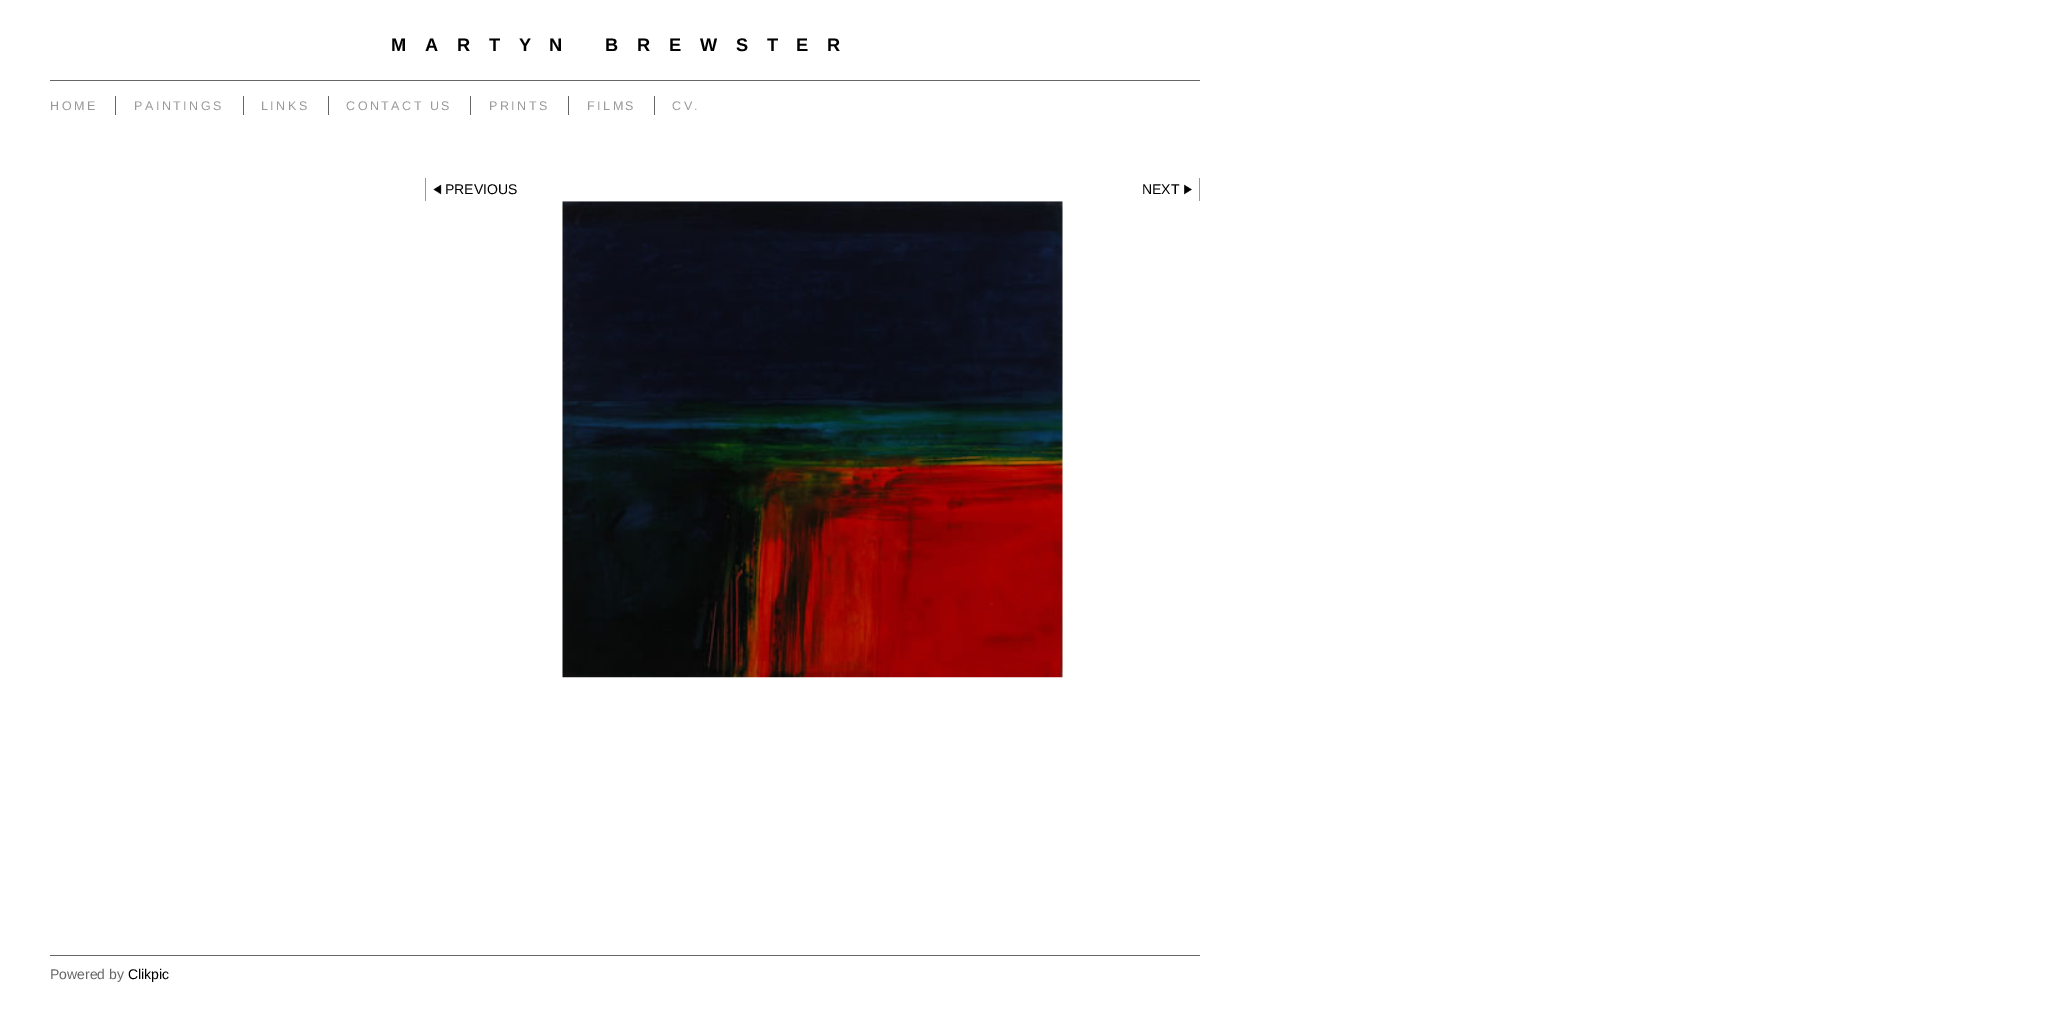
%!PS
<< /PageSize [2056 1028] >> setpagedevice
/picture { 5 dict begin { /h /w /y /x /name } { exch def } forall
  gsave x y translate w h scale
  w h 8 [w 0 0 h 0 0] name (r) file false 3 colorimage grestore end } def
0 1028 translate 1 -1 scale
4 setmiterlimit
1 setgray
0 0 2056 1028 rectfill
0.4 setgray
50 80 1150 1 rectfill
/LiberationSans-Bold [18.2 0 0 -18.2 0 0] selectfont
0 setgray
391 51 moveto 18.75 0 (MARTYN BREWSTER) ashow
/LiberationSans-Regular [12.5 0 0 -12.5 0 0] selectfont
0.6 setgray
50 110 moveto 2.5 0 (HOME) ashow
0.4 setgray
115 96 1 19 rectfill
0.6 setgray
134 110 moveto 2.5 0 (PAINTINGS) ashow
0.4 setgray
243 96 1 19 rectfill
0.6 setgray
261 110 moveto 2.5 0 (LINKS) ashow
0.4 setgray
328 96 1 19 rectfill
0.6 setgray
346 110 moveto 2.5 0 (CONTACT US) ashow
0.4 setgray
470 96 1 19 rectfill
0.6 setgray
489 110 moveto 2.5 0 (PRINTS) ashow
0.4 setgray
568 96 1 19 rectfill
0.6 setgray
587 110 moveto 2.5 0 (FILMS) ashow
0.4 setgray
654 96 1 19 rectfill
0.6 setgray
672 110 moveto 2.5 0 (CV.) ashow
425 178 1 23 rectfill
(img1.rgb) 433 184 9 11 picture
/LiberationSans-Regular [14 0 0 -14 0 0] selectfont
0 setgray
445 194 moveto (PREVIOUS) show
0.6 setgray
1199 178 1 23 rectfill
0 setgray
1142 194 moveto (NEXT) show
(img2.rgb) 1184 184 8 11 picture
(img3.rgb) 562 201 501 477 picture
0.4 setgray
50 955 1150 1 rectfill
50 979 moveto (Powered by) show
0 setgray
128 979 moveto (Clikpic) show
showpage
